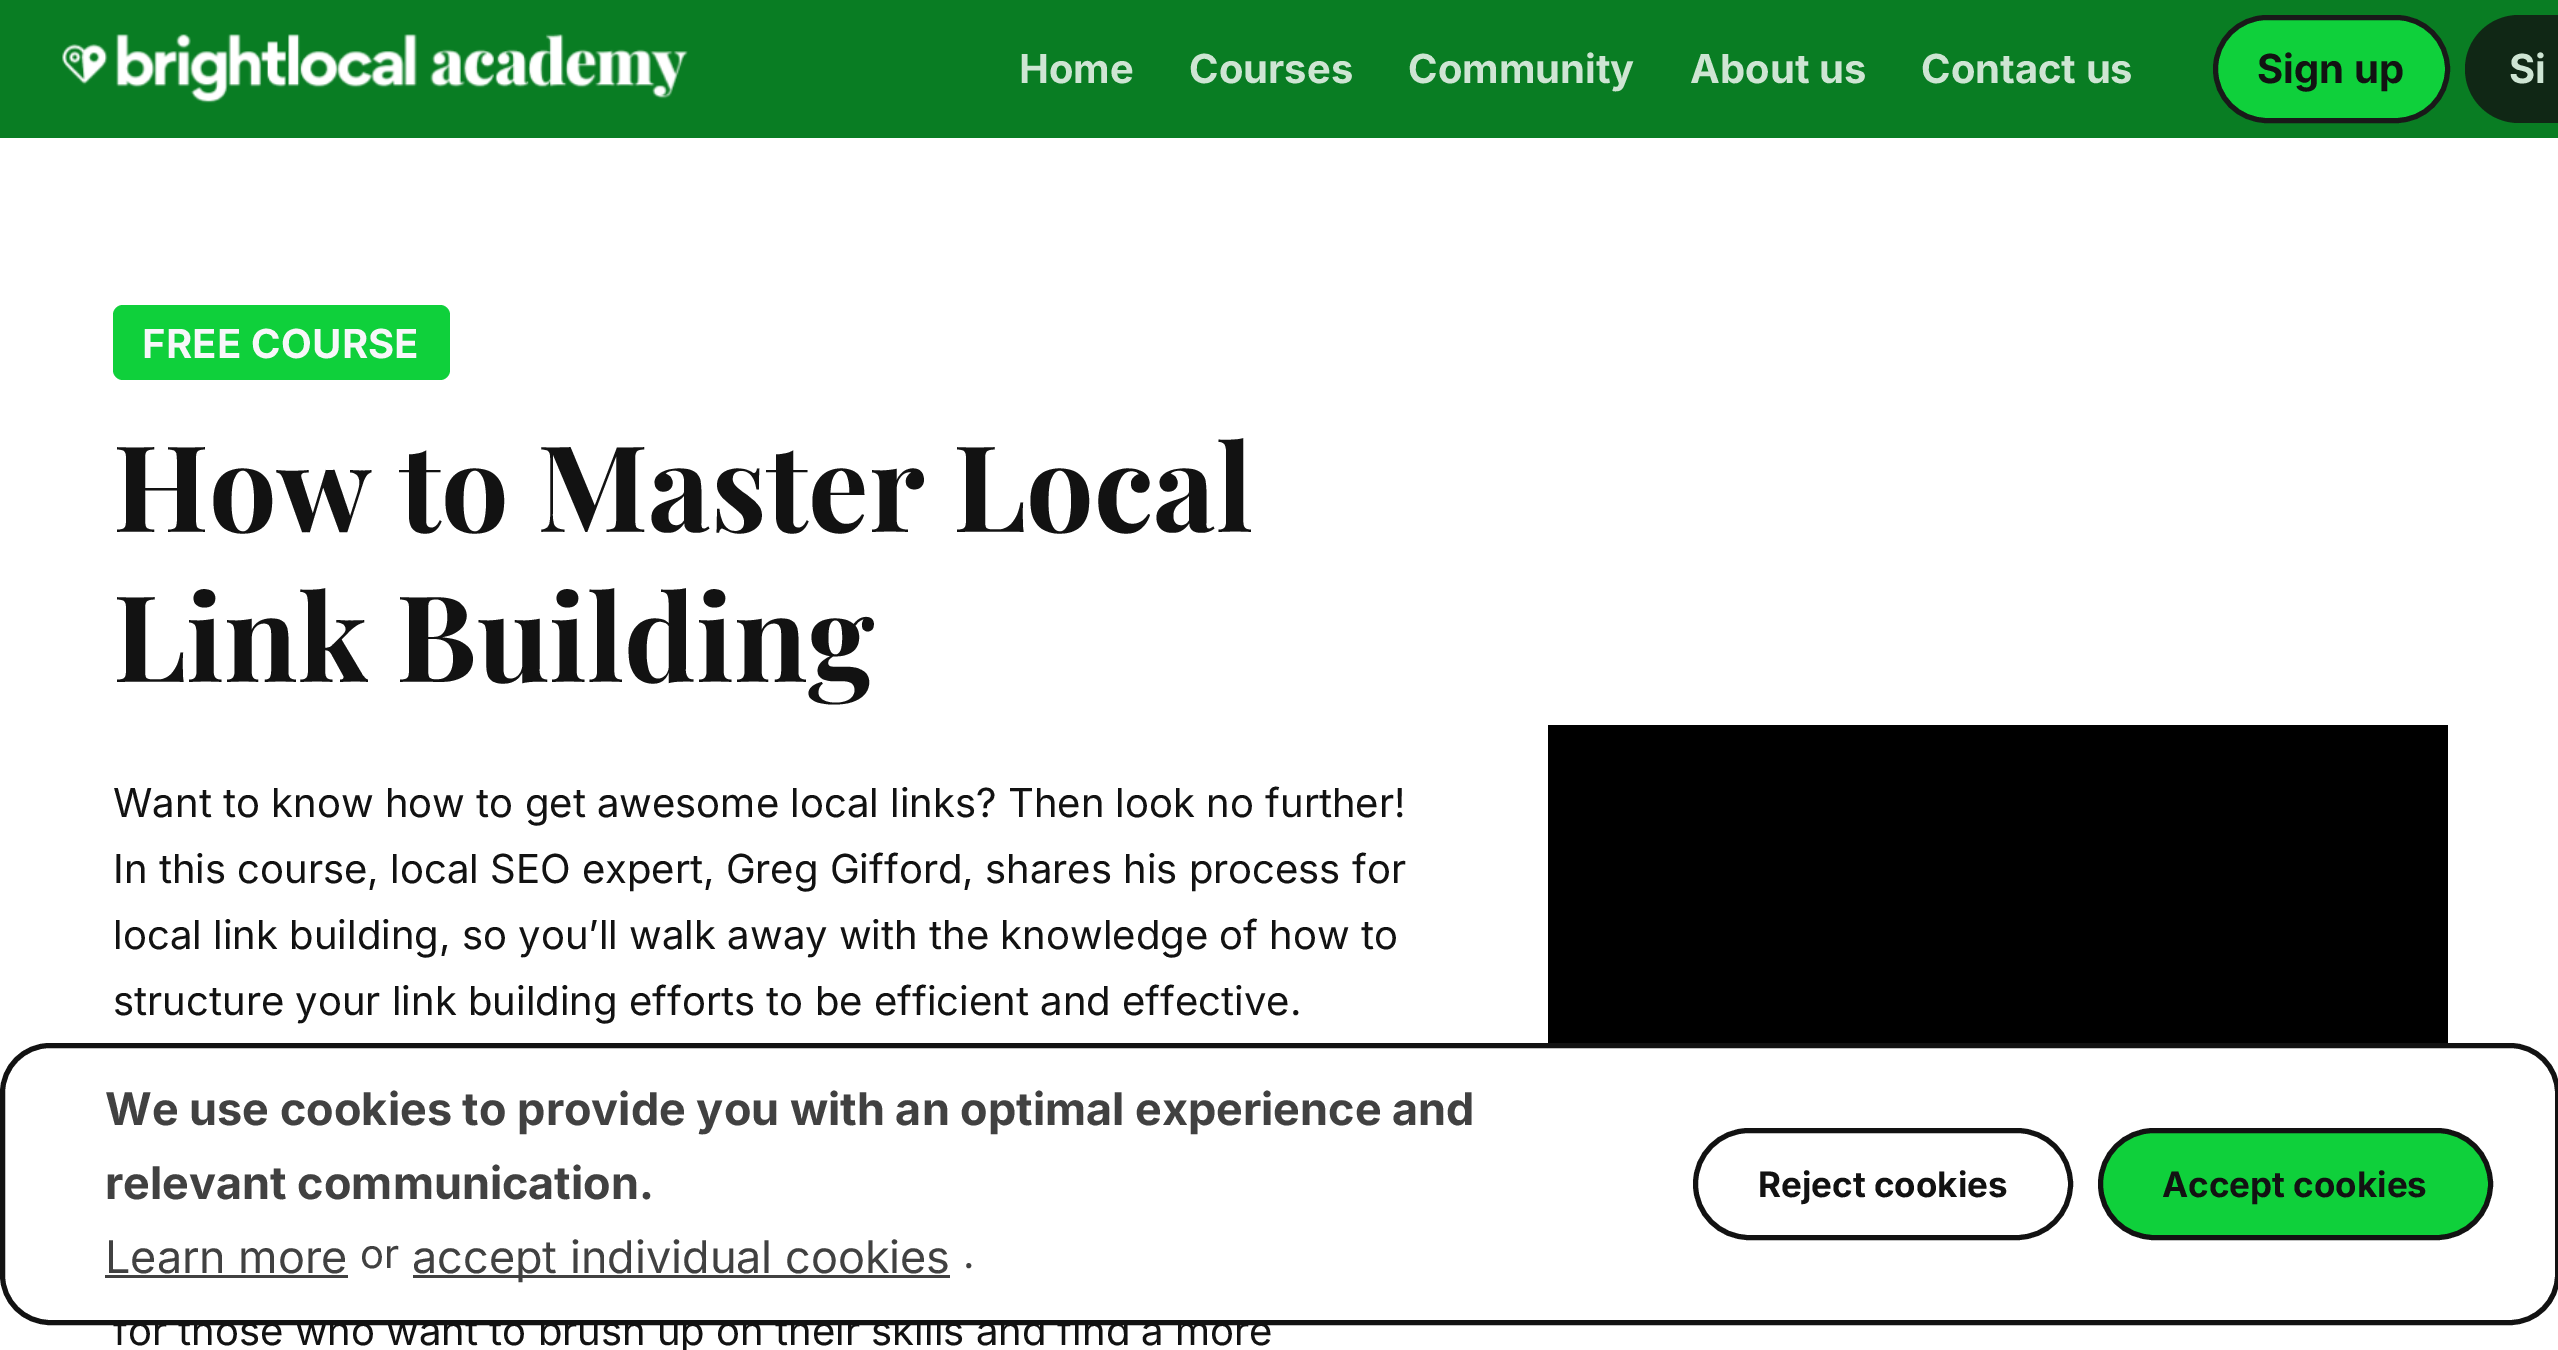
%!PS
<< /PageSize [2558 1350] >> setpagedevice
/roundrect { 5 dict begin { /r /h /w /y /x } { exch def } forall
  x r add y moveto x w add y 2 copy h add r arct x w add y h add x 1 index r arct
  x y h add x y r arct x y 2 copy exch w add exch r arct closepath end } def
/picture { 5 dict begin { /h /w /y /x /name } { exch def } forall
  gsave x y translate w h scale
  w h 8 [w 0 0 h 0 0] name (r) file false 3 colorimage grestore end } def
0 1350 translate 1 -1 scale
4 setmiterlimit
1 setgray
0 0 2558 1350 rectfill
0.035 0.49 0.137 setrgbcolor
0 0 2558 138 rectfill
(img1.rgb) 62 34 626 69 picture
/Inter-Bold [40 0 0 -40 0 0] selectfont
0.808 0.898 0.827 setrgbcolor
1019 83 moveto (Home) show
1189 83 moveto (Courses) show
1408 83 moveto (Community) show
1690 83 moveto (About us) show
1921 83 moveto (Contact us) show
0.059 0.816 0.231 setrgbcolor
2215.5 17.5 232 103 51.5 roundrect gsave fill grestore
0.098 setgray
5 setlinewidth
stroke
0.071 setgray
2257 83 moveto (Sign up) show
0.063 0.153 0.082 setrgbcolor
newpath 2519 15 moveto 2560 15 lineto 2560 123 lineto 2519 123 lineto 2489 123 2465 99 2465 69 curveto 2465 39 2489 15 2519 15 curveto closepath fill
0.808 0.898 0.827 setrgbcolor
2509 83 moveto (Si) show
0.059 0.816 0.231 setrgbcolor
113 305 337 75 10 roundrect fill
0.969 0.969 0.976 setrgbcolor
142 358 moveto 0.25 0 (FREE COURSE) ashow
/PlayfairDisplay-Bold [120 0 0 -120 0 0] selectfont
0.071 setgray
113 532 moveto (How to Master Local) show
113 682 moveto (Link Building) show
/Inter-Regular [40 0 0 -40 0 0] selectfont
113 817 moveto (Want to know how to get awesome local links? Then look no further!) show
113 883 moveto (In this course, local SEO expert, Greg Gifford, shares his process for) show
113 949 moveto (local link building, so you’ll walk away with the knowledge of how to) show
113 1015 moveto (structure your link building efforts to be efficient and effective.) show
113 1345 moveto (for those who want to brush up on their skills and find a more) show
0 setgray
1548 725 900 318 rectfill
1 setgray
2.5 1045.5 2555 277 47.5 roundrect gsave fill grestore
0.071 setgray
stroke
/Inter-Bold [45 0 0 -45 0 0] selectfont
0.255 setgray
105 1125 moveto (We use cookies to provide you with an optimal experience and) show
105 1199 moveto (relevant communication.) show
/Inter-Regular [45 0 0 -45 0 0] selectfont
105 1273 moveto (Learn more) show
105 1275 243 3 rectfill
/Inter-Regular [40 0 0 -40 0 0] selectfont
360 1268 moveto (or) show
413 1275 537 3 rectfill
/Inter-Regular [45 0 0 -45 0 0] selectfont
412 1273 moveto (accept individual cookies) show
/Inter-Regular [40 0 0 -40 0 0] selectfont
963 1268 moveto (.) show
0.071 setgray
1695.5 1130.5 375 107 53.5 roundrect stroke
/Inter-Bold [35 0 0 -35 0 0] selectfont
1758 1197 moveto (Reject cookies) show
0.059 0.816 0.231 setrgbcolor
2100.5 1130.5 390 107 53.5 roundrect gsave fill grestore
0.071 setgray
stroke
2162 1197 moveto (Accept cookies) show
showpage
